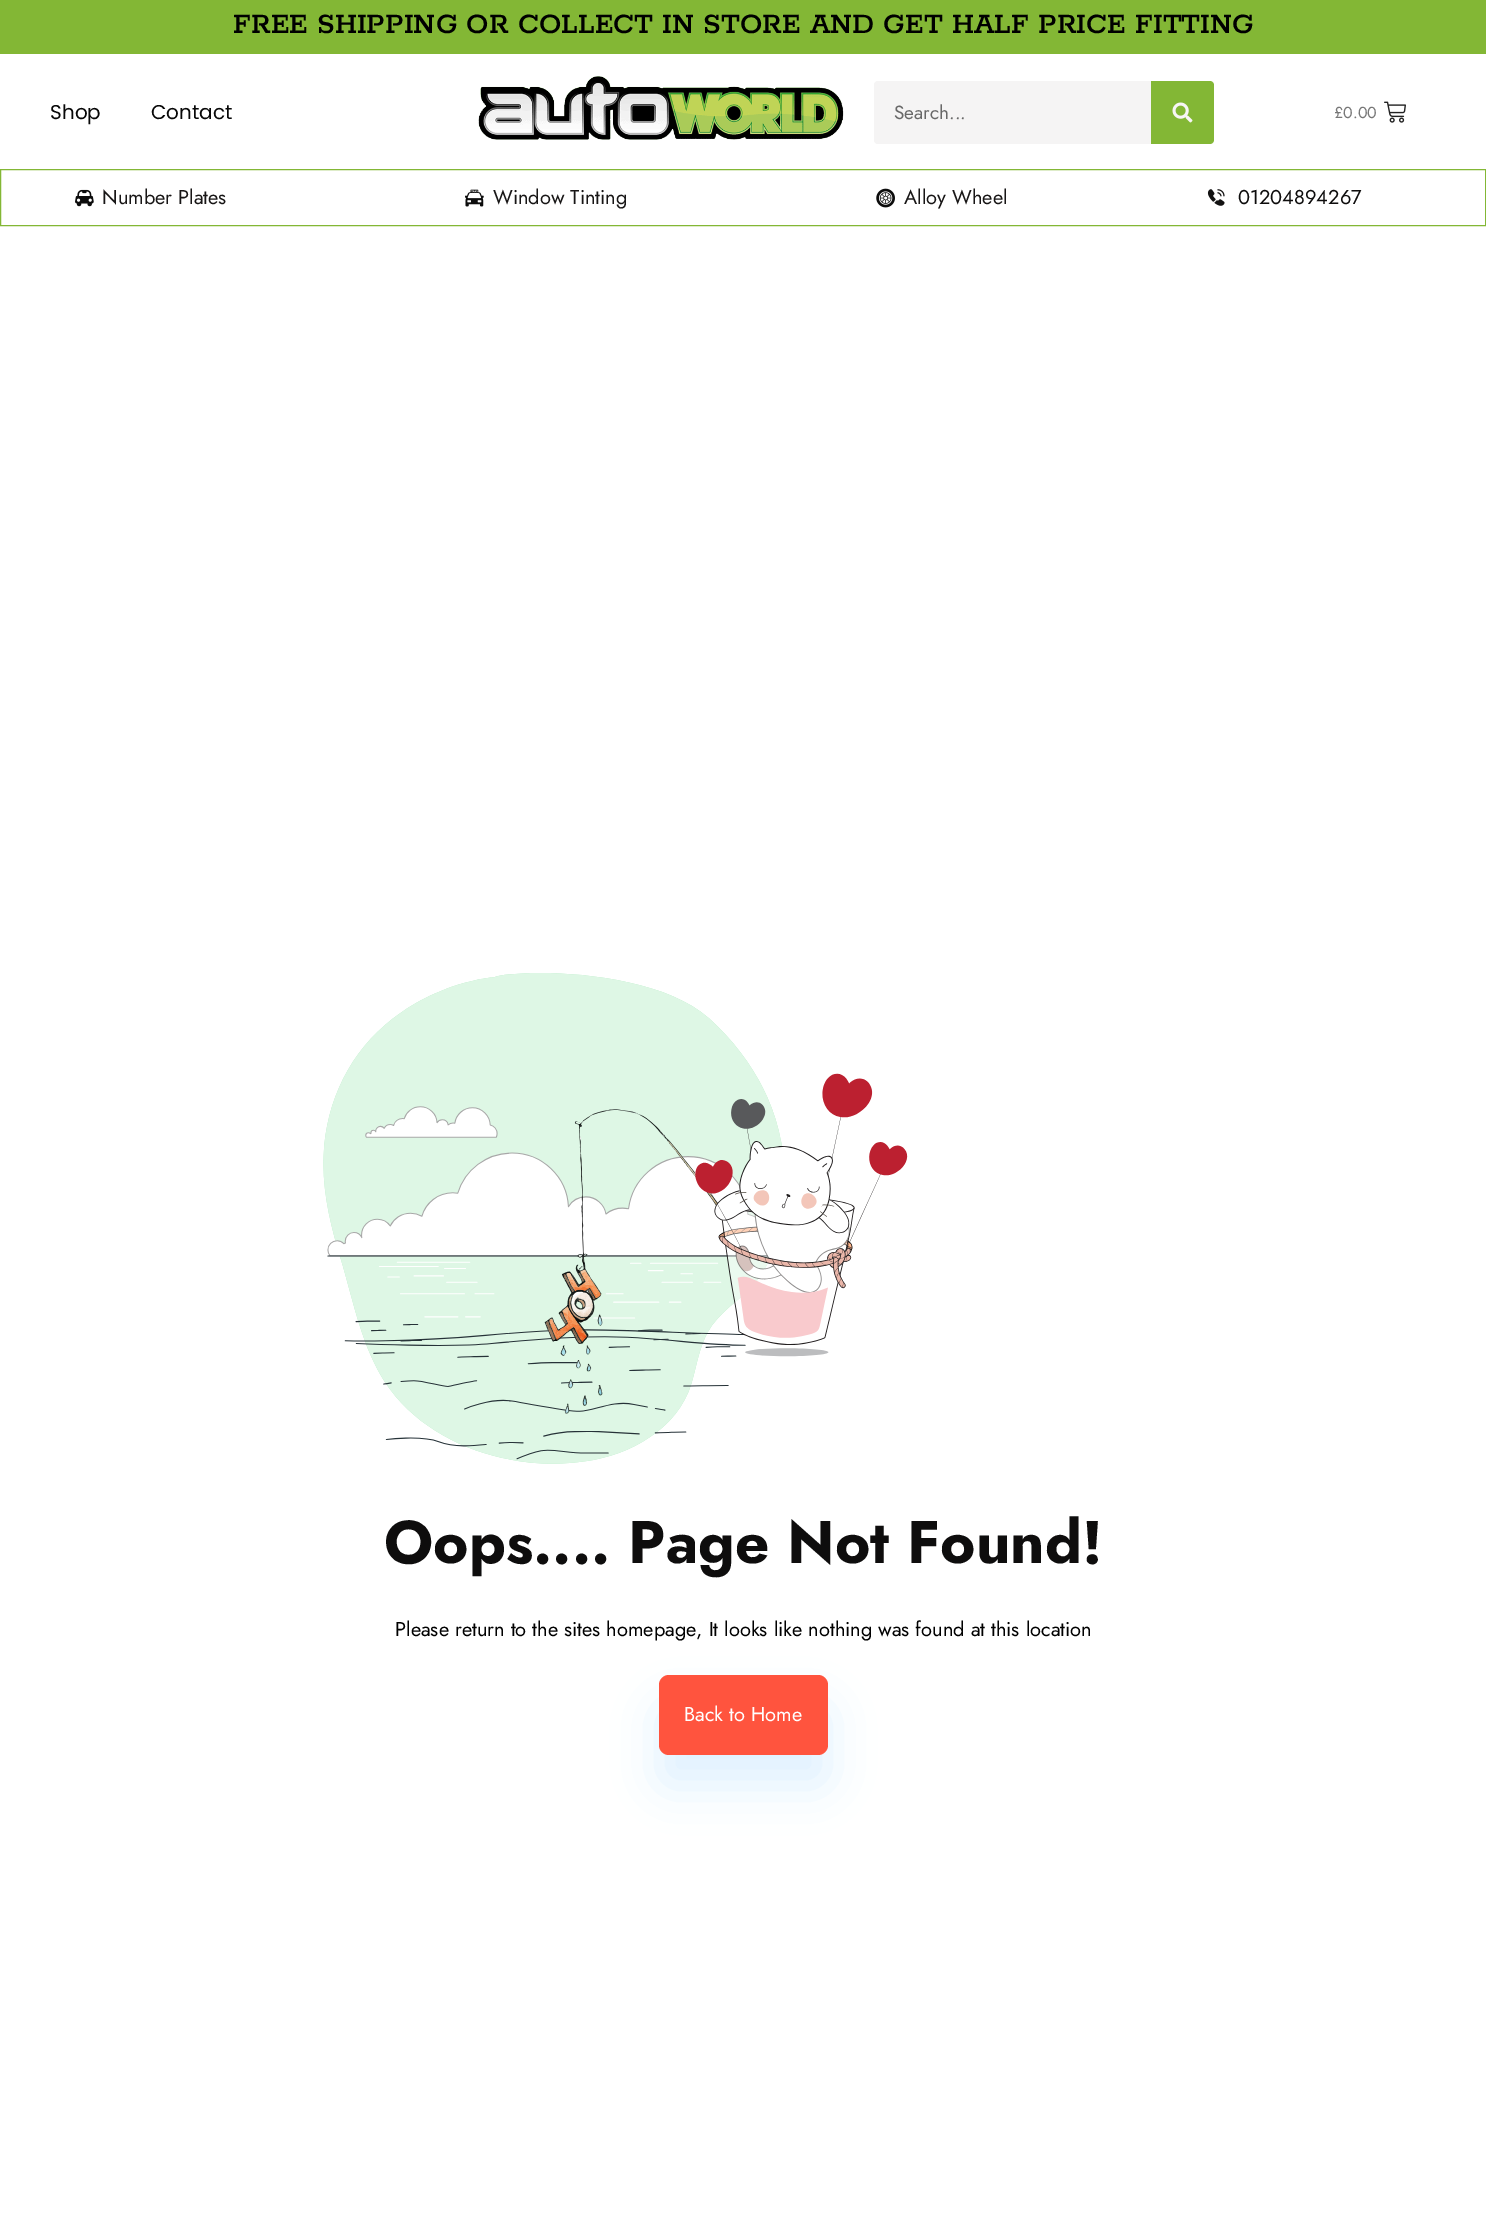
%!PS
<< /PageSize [1486 2239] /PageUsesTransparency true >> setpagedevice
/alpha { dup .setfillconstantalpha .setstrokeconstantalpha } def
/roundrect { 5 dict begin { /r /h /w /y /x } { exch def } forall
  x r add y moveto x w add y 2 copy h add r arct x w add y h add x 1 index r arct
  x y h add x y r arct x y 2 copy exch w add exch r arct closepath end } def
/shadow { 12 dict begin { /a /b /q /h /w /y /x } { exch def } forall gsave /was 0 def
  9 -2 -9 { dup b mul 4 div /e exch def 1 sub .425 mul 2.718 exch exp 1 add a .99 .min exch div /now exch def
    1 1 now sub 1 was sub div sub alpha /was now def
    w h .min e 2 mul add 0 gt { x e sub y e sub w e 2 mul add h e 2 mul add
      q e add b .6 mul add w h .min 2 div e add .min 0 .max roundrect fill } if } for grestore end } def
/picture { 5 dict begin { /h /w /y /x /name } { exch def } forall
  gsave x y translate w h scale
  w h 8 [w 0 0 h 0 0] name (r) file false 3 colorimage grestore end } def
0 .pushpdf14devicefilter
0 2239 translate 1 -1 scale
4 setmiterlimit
1 setgray
0 0 1486 2239 rectfill
0.514 0.718 0.208 setrgbcolor
0 0 1486 54 rectfill
/Rokkitt-Medium [31.25 0 0 -31.25 0 0] selectfont
0 setgray
233 33 moveto (FREE SHIPPING OR COLLECT IN STORE AND GET HALF PRICE FITTING) show
/Poppins-Regular [20 0 0 -20 0 0] selectfont
0.031 setgray
50 119 moveto (Shop) show
151 119 moveto (Contact) show
(img1.rgb) 478 76 366 64 picture
0.961 0.957 0.957 setrgbcolor
874 81 340 63 4 roundrect fill
/Jost-Regular [19 0 0 -19 0 0] selectfont
0.408 setgray
894 119 moveto (Search...) show
0.514 0.718 0.208 setrgbcolor
newpath 1151 81 moveto 1210 81 lineto 1212 81 1214 83 1214 85 curveto 1214 140 lineto 1214 142 1212 144 1210 144 curveto 1151 144 lineto closepath fill
(img2.rgb) 1172 102 21 21 picture
/Jost-Regular [16 0 0 -16 0 0] selectfont
0.467 setgray
1334 118 moveto (£0.00) show
(img3.rgb) 1384 101 22 22 picture
0.514 0.718 0.208 setrgbcolor
0.5 169.5 1485 56 rectstroke
(img4.rgb) 75 189 19 18 picture
/Jost-Regular [20 0 0 -20 0 0] selectfont
0.094 0.086 0.086 setrgbcolor
102 204 moveto (Number Plates) show
(img5.rgb) 465 189 19 18 picture
493 204 moveto (Window Tinting) show
(img6.rgb) 876 188 19 20 picture
904 204 moveto (Alloy Wheel) show
(img7.rgb) 1207 189 18 17 picture
0.055 0.051 0.051 setrgbcolor
1238 204 moveto (01204894267) show
(img8.rgb) 323 973 585 491 picture
/Jost-Bold [60 0 0 -60 0 0] selectfont
384 1563 moveto (Oops.... Page Not Found!) show
/Jost-Regular [20 0 0 -20 0 0] selectfont
0 setgray
395 1636 moveto (Please return to the sites homepage, It looks like nothing was found at this location) show
0.165 0.655 1 setrgbcolor
659 1706 169 80 10 22 0.15 shadow
1 0.329 0.243 setrgbcolor
659 1675 169 80 10 roundrect fill
1 setgray
684 1721 moveto (Back to Home) show
.poppdf14devicefilter showpage
